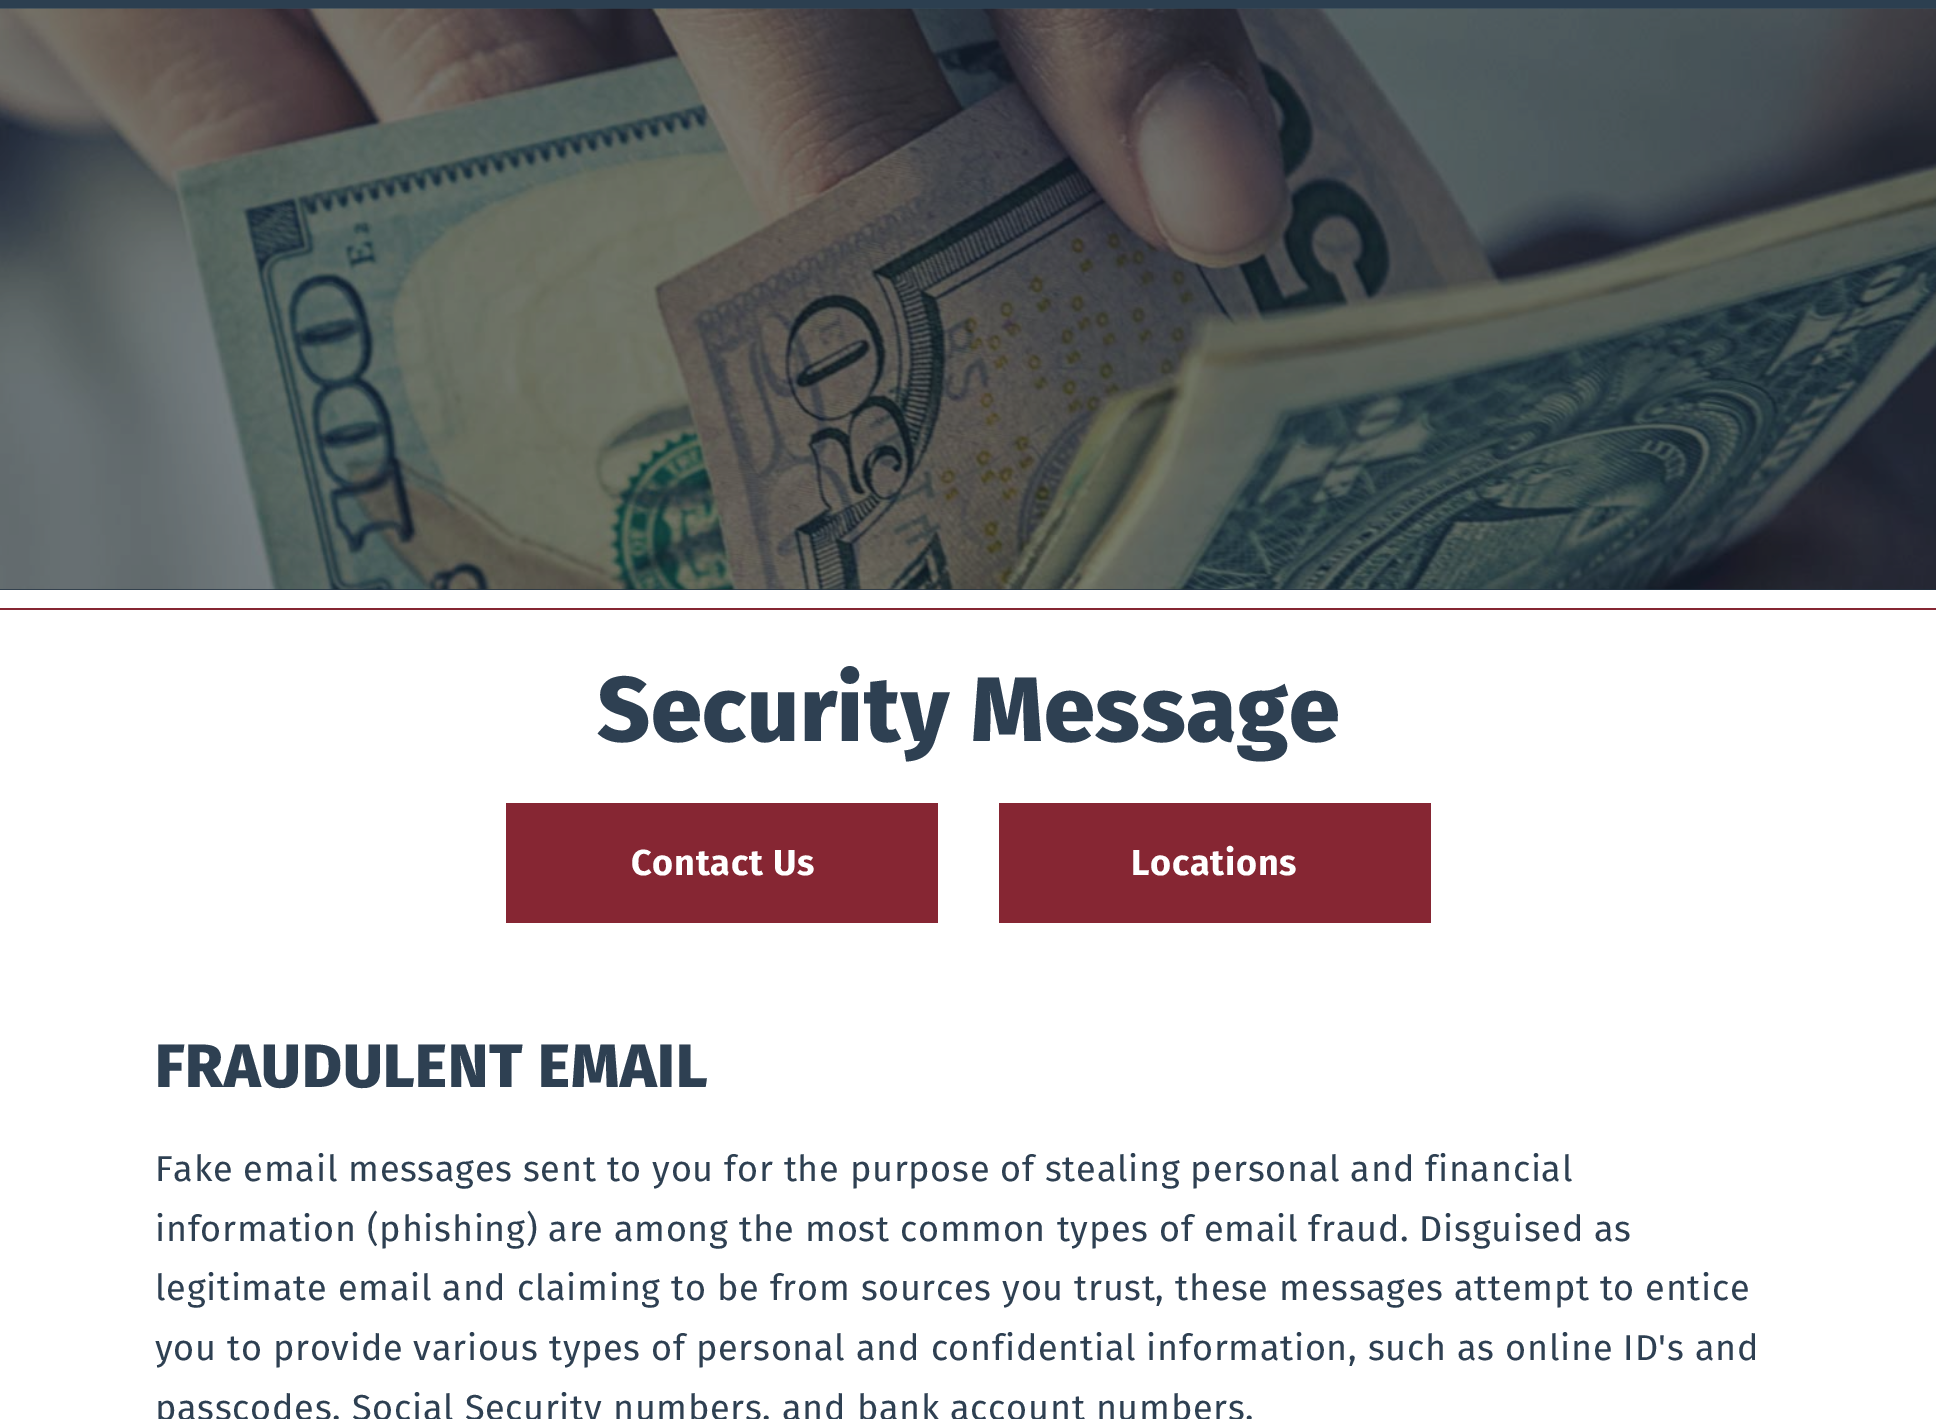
%!PS
<< /PageSize [1936 1419] >> setpagedevice
/picture { 5 dict begin { /h /w /y /x /name } { exch def } forall
  gsave x y translate w h scale
  w h 8 [w 0 0 h 0 0] name (r) file false 3 colorimage grestore end } def
0 1419 translate 1 -1 scale
4 setmiterlimit
1 setgray
0 0 1936 1419 rectfill
gsave newpath 0 0 moveto 1936 0 lineto 1936 9 lineto 0 9 lineto closepath clip newpath
<< /ShadingType 2 /ColorSpace /DeviceRGB /Coords [969 9 969 -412] /Extend [true true] /Function << /FunctionType 2 /Domain [0 1] /C0 [0.176 0.251 0.318] /C1 [0.098 0.141 0.18] /N 1 >> >> shfill grestore
0.137 0.196 0.259 setrgbcolor
0 9 1936 581 rectfill
(img1.rgb) 0 8 1936 582 picture
0.525 0.149 0.2 setrgbcolor
0 608 1936 2 rectfill
/FiraSans-ExtraBold [91.5 0 0 -91.5 0 0] selectfont
0.18 0.251 0.322 setrgbcolor
597 741 moveto 0.72 0 (Security Message) ashow
0.525 0.149 0.2 setrgbcolor
506 803 432 120 rectfill
/FiraSans-Bold [36 0 0 -36 0 0] selectfont
1 setgray
631 875 moveto 0.72 0 (Contact Us) ashow
0.525 0.149 0.2 setrgbcolor
999 803 432 120 rectfill
1 setgray
1131 875 moveto 0.72 0 (Locations) ashow
/FiraSans-ExtraBold [61.25 0 0 -61.25 0 0] selectfont
0.18 0.251 0.322 setrgbcolor
155 1087 moveto 0.72 0 (FRAUDULENT EMAIL) ashow
/FiraSans-Regular [36 0 0 -36 0 0] selectfont
155 1181 moveto 0.72 0 (Fake email messages sent to you for the purpose of stealing personal and financial) ashow
155 1241 moveto 0.72 0 (information \(phishing\) are among the most common types of email fraud. Disguised as) ashow
155 1300 moveto 0.72 0 (legitimate email and claiming to be from sources you trust, these messages attempt to entice) ashow
155 1360 moveto 0.72 0 (you to provide various types of personal and confidential information, such as online ID's and) ashow
155 1420 moveto 0.72 0 (passcodes, Social Security numbers, and bank account numbers.) ashow
showpage
